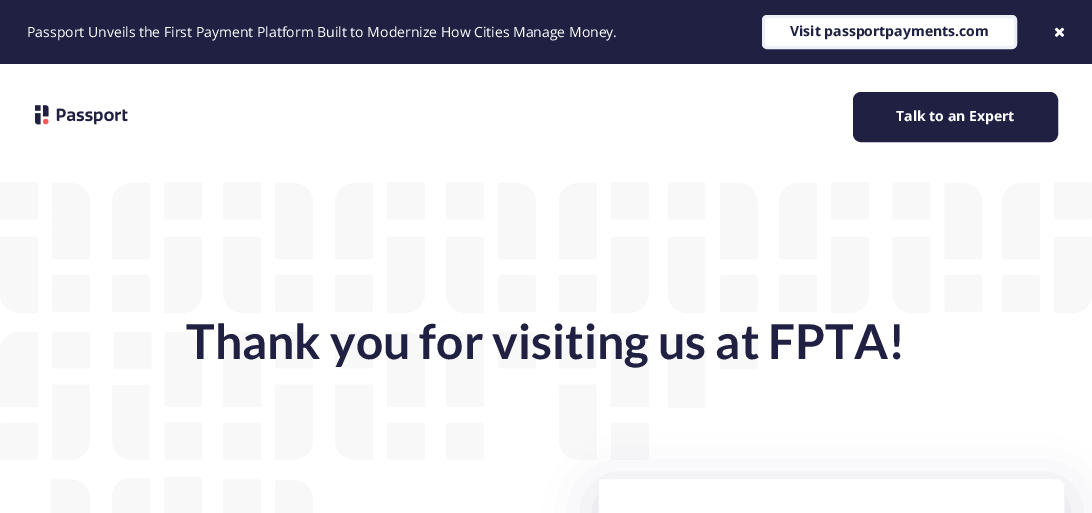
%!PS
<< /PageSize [1092 513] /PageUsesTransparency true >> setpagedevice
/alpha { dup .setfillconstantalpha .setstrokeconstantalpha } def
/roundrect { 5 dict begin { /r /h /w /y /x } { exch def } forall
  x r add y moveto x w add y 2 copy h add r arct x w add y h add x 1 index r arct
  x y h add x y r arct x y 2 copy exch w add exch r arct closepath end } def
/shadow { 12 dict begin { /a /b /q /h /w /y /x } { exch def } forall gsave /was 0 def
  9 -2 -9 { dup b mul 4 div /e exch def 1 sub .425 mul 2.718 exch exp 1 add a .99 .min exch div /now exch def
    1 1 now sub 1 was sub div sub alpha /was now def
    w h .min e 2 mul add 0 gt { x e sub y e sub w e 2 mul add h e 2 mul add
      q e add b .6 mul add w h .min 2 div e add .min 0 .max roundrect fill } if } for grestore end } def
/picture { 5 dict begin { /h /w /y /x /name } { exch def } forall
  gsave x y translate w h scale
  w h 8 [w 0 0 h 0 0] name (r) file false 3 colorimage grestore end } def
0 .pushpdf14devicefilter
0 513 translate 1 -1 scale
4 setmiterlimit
1 setgray
0 0 1092 513 rectfill
0.122 0.125 0.259 setrgbcolor
0 0 1092 64 rectfill
/OpenSans-Regular [14 0 0 -14 0 0] selectfont
1 setgray
27 37 moveto (Passport Unveils the First Payment Platform Built to Modernize How Cities Manage Money.) show
763.5 16.5 252 31 3.5 roundrect gsave fill grestore
0.929 0.941 0.965 setrgbcolor
3 setlinewidth
stroke
/OpenSans-Bold [14 0 0 -14 0 0] selectfont
0.122 0.125 0.259 setrgbcolor
790 36 moveto (Visit passportpayments.com) show
(img1.rgb) 1054 27 11 10 picture
(img2.rgb) 35 105 93 20 picture
854.5 93.5 202 47 6.5 roundrect gsave fill grestore
stroke
1 setgray
896 121 moveto (Talk to an Expert) show
(img3.rgb) 0 182 1092 331 picture
/Lato-Bold [48 0 0 -48 0 0] selectfont
0.122 0.125 0.259 setrgbcolor
186 359 moveto (Thank you for visiting us at FPTA!) show
598 490 467 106 8 25 0.15 shadow
1 setgray
newpath 598.5 478.5 moveto 1057 478.5 lineto 1061 478.5 1064.5 482 1064.5 486 curveto 1064.5 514 lineto 1064.5 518 1061 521.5 1057 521.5 curveto 598.5 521.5 lineto closepath gsave fill grestore
0.957 0.957 0.965 setrgbcolor
1 setlinewidth
stroke
.poppdf14devicefilter showpage
